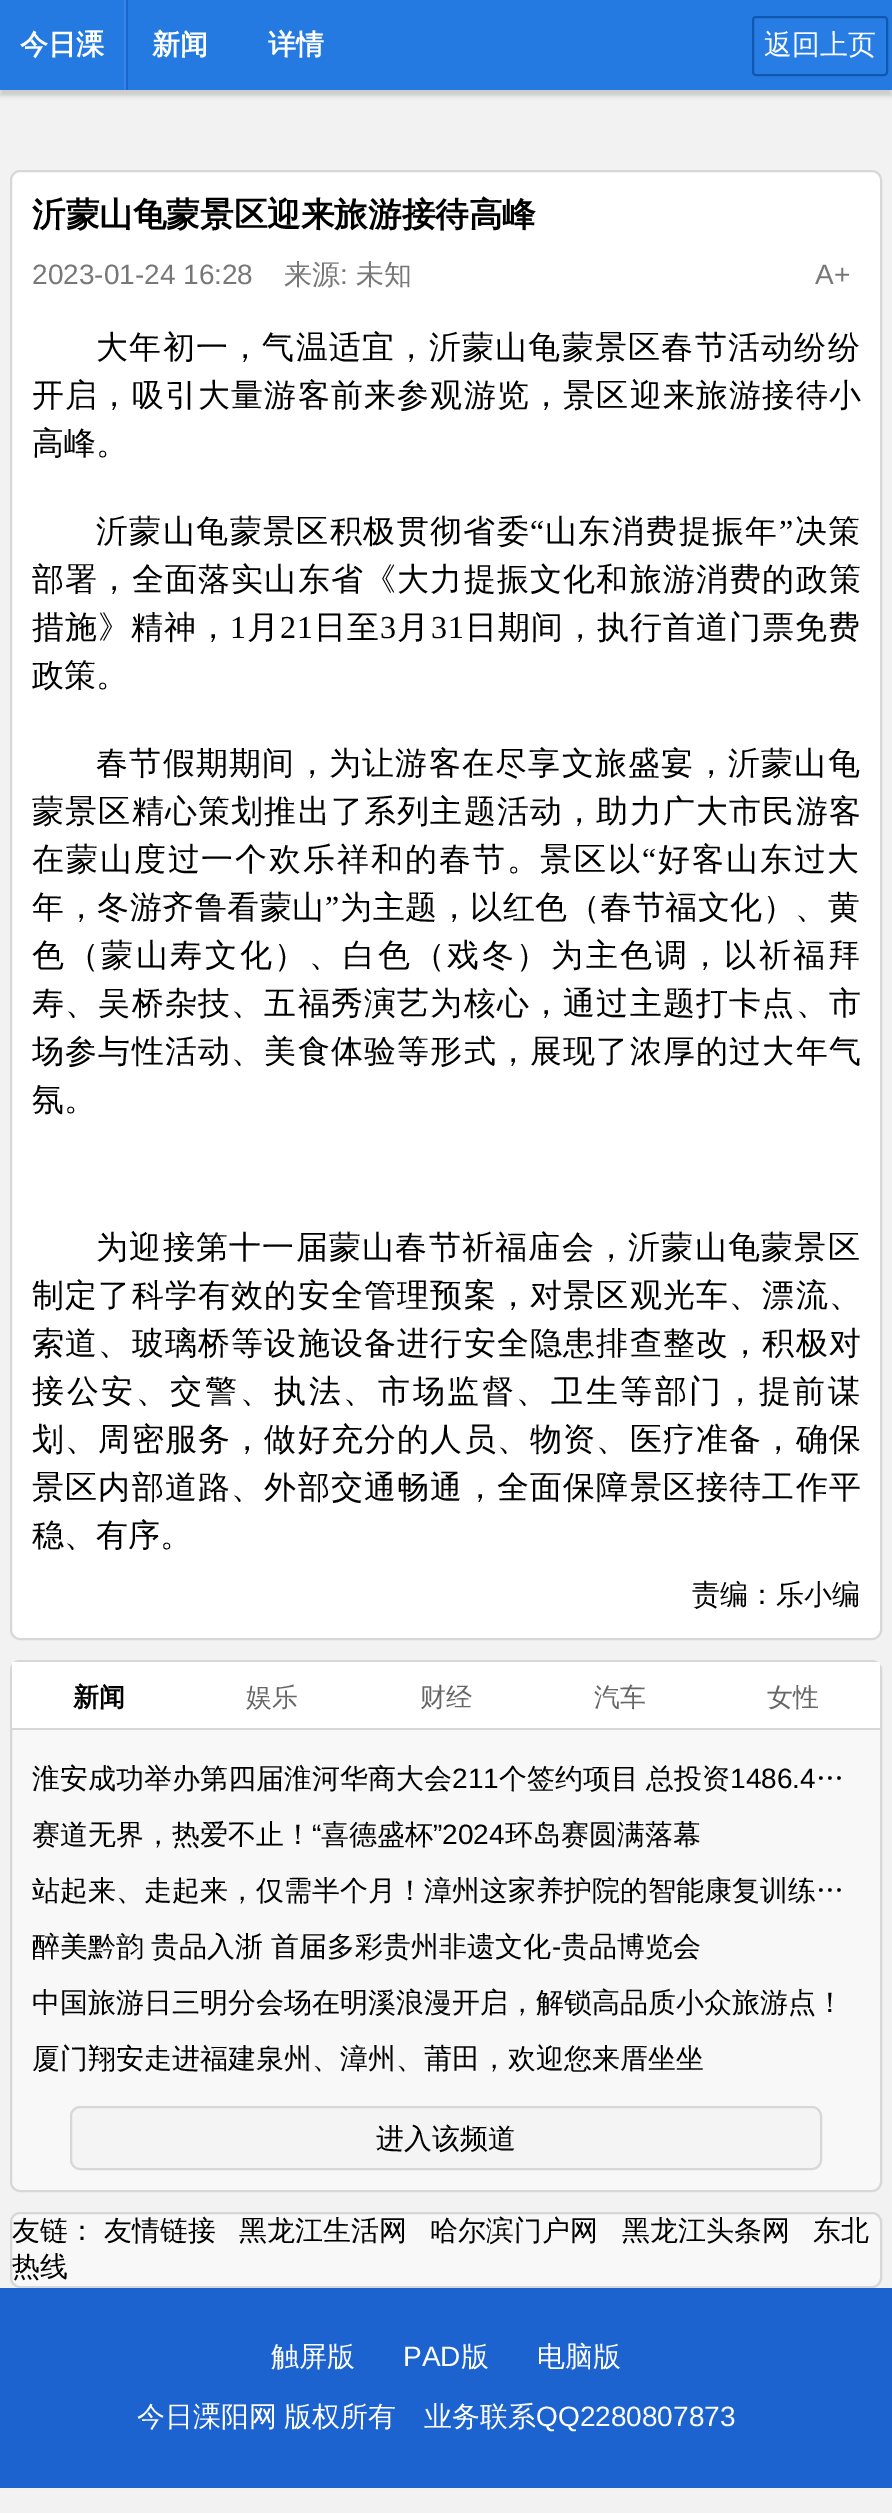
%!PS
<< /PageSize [892 2513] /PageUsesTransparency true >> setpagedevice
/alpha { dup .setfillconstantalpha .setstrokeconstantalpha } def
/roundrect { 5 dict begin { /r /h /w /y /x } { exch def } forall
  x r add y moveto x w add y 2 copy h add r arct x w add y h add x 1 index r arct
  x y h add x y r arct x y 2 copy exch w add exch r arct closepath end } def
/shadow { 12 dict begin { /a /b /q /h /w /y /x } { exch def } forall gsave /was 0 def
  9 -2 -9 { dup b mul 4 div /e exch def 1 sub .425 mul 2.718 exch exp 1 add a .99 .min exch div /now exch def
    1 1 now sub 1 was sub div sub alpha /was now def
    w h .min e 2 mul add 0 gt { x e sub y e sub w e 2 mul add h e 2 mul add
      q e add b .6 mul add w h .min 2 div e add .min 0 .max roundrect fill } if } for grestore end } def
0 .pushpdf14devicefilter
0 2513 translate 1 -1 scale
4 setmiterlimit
0.949 setgray
0 0 892 2513 rectfill
0.8 setgray
0 6 892 90 0 2 1 shadow
0.141 0.478 0.882 setrgbcolor
0 0 892 90 rectfill
/WenQuanYiZenHei-Bold [28 0 0 -28 0 0] selectfont
1 setgray
20 54 moveto (今日溧) show
0.098 0.396 0.835 setrgbcolor
126 0 2 90 rectfill
0.216 0.522 0.878 setrgbcolor
124 0 2 90 rectfill
1 setgray
152 54 moveto (新闻) show
268 54 moveto (详情) show
0.153 0.49 0.894 setrgbcolor
753 17 134 58 3 roundrect gsave fill grestore
0.063 0.341 0.686 setrgbcolor
2 setlinewidth
stroke
/WenQuanYiZenHei-Medium [28 0 0 -28 0 0] selectfont
1 setgray
764 54 moveto (返回上页) show
11 171 870 1468 9 roundrect gsave fill grestore
0.843 setgray
stroke
/WenQuanYiZenHei-Bold [33.6 0 0 -33.6 0 0] selectfont
0 setgray
32 226 moveto (沂蒙山龟蒙景区迎来旅游接待高峰) show
/LiberationSans-Regular [28 0 0 -28 0 0] selectfont
0.467 setgray
32 284 moveto (2023-01-24 16:28) show
/WenQuanYiZenHei-Medium [28 0 0 -28 0 0] selectfont
284 284 moveto (来源) show
/LiberationSans-Regular [28 0 0 -28 0 0] selectfont
340 284 moveto (:) show
/WenQuanYiZenHei-Medium [28 0 0 -28 0 0] selectfont
356 284 moveto (未知) show
/LiberationSans-Regular [28 0 0 -28 0 0] selectfont
815 284 moveto (A+) show
/WenQuanYiZenHei-Medium [32 0 0 -32 0 0] selectfont
0 setgray
96 358 moveto 1.25 0 (大年初一，气温适宜，沂蒙山龟蒙景区春节活动纷纷) ashow
32 406 moveto 1.2 0 (开启，吸引大量游客前来参观游览，景区迎来旅游接待小) ashow
32 454 moveto (高峰。) show
96 542 moveto 1.4 0 (沂蒙山龟蒙景区积极贯彻省委) ashow
/LiberationSerif-Regular [32 0 0 -32 0 0] selectfont
530 542 moveto 1.4 0 (“) ashow
/WenQuanYiZenHei-Medium [32 0 0 -32 0 0] selectfont
545 542 moveto 1.4 0 (山东消费提振年) ashow
/LiberationSerif-Regular [32 0 0 -32 0 0] selectfont
779 542 moveto 1.4 0 (”) ashow
/WenQuanYiZenHei-Medium [32 0 0 -32 0 0] selectfont
795 542 moveto 1.4 0 (决策) ashow
32 590 moveto 1.2 0 (部署，全面落实山东省《大力提振文化和旅游消费的政策) ashow
32 638 moveto 1 0 (措施》精神，) ashow
/LiberationSerif-Regular [32 0 0 -32 0 0] selectfont
230 638 moveto 1 0 (1) ashow
/WenQuanYiZenHei-Medium [32 0 0 -32 0 0] selectfont
247 638 moveto 1 0 (月) ashow
/LiberationSerif-Regular [32 0 0 -32 0 0] selectfont
280 638 moveto 1 0 (21) ashow
/WenQuanYiZenHei-Medium [32 0 0 -32 0 0] selectfont
314 638 moveto 1 0 (日至) ashow
/LiberationSerif-Regular [32 0 0 -32 0 0] selectfont
380 638 moveto 1 0 (3) ashow
/WenQuanYiZenHei-Medium [32 0 0 -32 0 0] selectfont
397 638 moveto 1 0 (月) ashow
/LiberationSerif-Regular [32 0 0 -32 0 0] selectfont
431 638 moveto 1 0 (31) ashow
/WenQuanYiZenHei-Medium [32 0 0 -32 0 0] selectfont
465 638 moveto 1 0 (日期间，执行首道门票免费) ashow
32 686 moveto (政策。) show
96 774 moveto 1.25 0 (春节假期期间，为让游客在尽享文旅盛宴，沂蒙山龟) ashow
32 822 moveto 1.2 0 (蒙景区精心策划推出了系列主题活动，助力广大市民游客) ashow
32 870 moveto 1.9 0 (在蒙山度过一个欢乐祥和的春节。景区以) ashow
/LiberationSerif-Regular [32 0 0 -32 0 0] selectfont
642 870 moveto 1.9 0 (“) ashow
/WenQuanYiZenHei-Medium [32 0 0 -32 0 0] selectfont
658 870 moveto 1.9 0 (好客山东过大) ashow
32 918 moveto 0.5 0 (年，冬游齐鲁看蒙山) ashow
/LiberationSerif-Regular [32 0 0 -32 0 0] selectfont
325 918 moveto 0.5 0 (”) ashow
/WenQuanYiZenHei-Medium [32 0 0 -32 0 0] selectfont
340 918 moveto 0.5 0 (为主题，以红色（春节福文化）、黄) ashow
32 966 moveto 2.6 0 (色（蒙山寿文化）、白色（戏冬）为主色调，以祈福拜) ashow
32 1014 moveto 1.2 0 (寿、吴桥杂技、五福秀演艺为核心，通过主题打卡点、市) ashow
32 1062 moveto 1.2 0 (场参与性活动、美食体验等形式，展现了浓厚的过大年气) ashow
32 1110 moveto (氛。) show
96 1258 moveto 1.25 0 (为迎接第十一届蒙山春节祈福庙会，沂蒙山龟蒙景区) ashow
32 1306 moveto 1.2 0 (制定了科学有效的安全管理预案，对景区观光车、漂流、) ashow
32 1354 moveto 1.2 0 (索道、玻璃桥等设施设备进行安全隐患排查整改，积极对) ashow
32 1402 moveto 2.6 0 (接公安、交警、执法、市场监督、卫生等部门，提前谋) ashow
32 1450 moveto 1.2 0 (划、周密服务，做好充分的人员、物资、医疗准备，确保) ashow
32 1498 moveto 1.2 0 (景区内部道路、外部交通畅通，全面保障景区接待工作平) ashow
32 1546 moveto (稳、有序。) show
/WenQuanYiZenHei-Medium [28 0 0 -28 0 0] selectfont
692 1604 moveto (责编：乐小编) show
0.973 setgray
11 1661 870 530 9 roundrect gsave fill grestore
0.843 setgray
stroke
1 setgray
12 1662 868 66 rectfill
0.843 setgray
12 1728 868 2 rectfill
/WenQuanYiZenHei-Bold [26 0 0 -26 0 0] selectfont
0 setgray
73 1706 moveto (新闻) show
/WenQuanYiZenHei-Medium [26 0 0 -26 0 0] selectfont
0.4 setgray
246 1706 moveto (娱乐) show
420 1706 moveto (财经) show
594 1706 moveto (汽车) show
767 1706 moveto (女性) show
/WenQuanYiZenHei-Medium [28 0 0 -28 0 0] selectfont
0 setgray
32 1788 moveto (淮安成功举办第四届淮河华商大会) show
/LiberationSans-Regular [28 0 0 -28 0 0] selectfont
452 1788 moveto (211) show
/WenQuanYiZenHei-Medium [28 0 0 -28 0 0] selectfont
499 1788 moveto -1 0 32 (个签约项目 总投资) widthshow
/LiberationSans-Regular [28 0 0 -28 0 0] selectfont
730 1788 moveto (1486.4) show
/WenQuanYiZenHei-Medium [28 0 0 -28 0 0] selectfont
816 1788 moveto (…) show
32 1844 moveto (赛道无界，热爱不止！) show
/LiberationSans-Regular [28 0 0 -28 0 0] selectfont
312 1844 moveto (“) show
/WenQuanYiZenHei-Medium [28 0 0 -28 0 0] selectfont
321 1844 moveto (喜德盛杯) show
/LiberationSans-Regular [28 0 0 -28 0 0] selectfont
433 1844 moveto (”2024) show
/WenQuanYiZenHei-Medium [28 0 0 -28 0 0] selectfont
505 1844 moveto (环岛赛圆满落幕) show
32 1900 moveto (站起来、走起来，仅需半个月！漳州这家养护院的智能康复训练…) show
32 1956 moveto -1 0 32 (醉美黔韵 贵品入浙 首届多彩贵州非遗文化) widthshow
/LiberationSans-Regular [28 0 0 -28 0 0] selectfont
552 1956 moveto (-) show
/WenQuanYiZenHei-Medium [28 0 0 -28 0 0] selectfont
561 1956 moveto (贵品博览会) show
32 2012 moveto (中国旅游日三明分会场在明溪浪漫开启，解锁高品质小众旅游点！) show
32 2068 moveto (厦门翔安走进福建泉州、漳州、莆田，欢迎您来厝坐坐) show
0.957 setgray
71 2107 750 62 9 roundrect gsave fill grestore
0.843 setgray
stroke
0 setgray
376 2148 moveto (进入该频道) show
0.973 setgray
11 2213 870 74 9 roundrect gsave fill grestore
0.843 setgray
stroke
0 setgray
12 2240 moveto (友链：) show
104 2240 moveto (友情链接) show
239 2240 moveto (黑龙江生活网) show
430 2240 moveto (哈尔滨门户网) show
622 2240 moveto (黑龙江头条网) show
813 2240 moveto (东北) show
12 2276 moveto (热线) show
0.11 0.388 0.812 setrgbcolor
0 2288 892 200 rectfill
1 setgray
271 2366 moveto (触屏版) show
/LiberationSans-Regular [28 0 0 -28 0 0] selectfont
403 2366 moveto (PAD) show
/WenQuanYiZenHei-Medium [28 0 0 -28 0 0] selectfont
461 2366 moveto (版) show
537 2366 moveto (电脑版) show
137 2426 moveto (今日溧阳网) show
284 2426 moveto (版权所有) show
424 2426 moveto (业务联系) show
/LiberationSans-Regular [28 0 0 -28 0 0] selectfont
536 2426 moveto (QQ2280807873) show
.poppdf14devicefilter showpage
